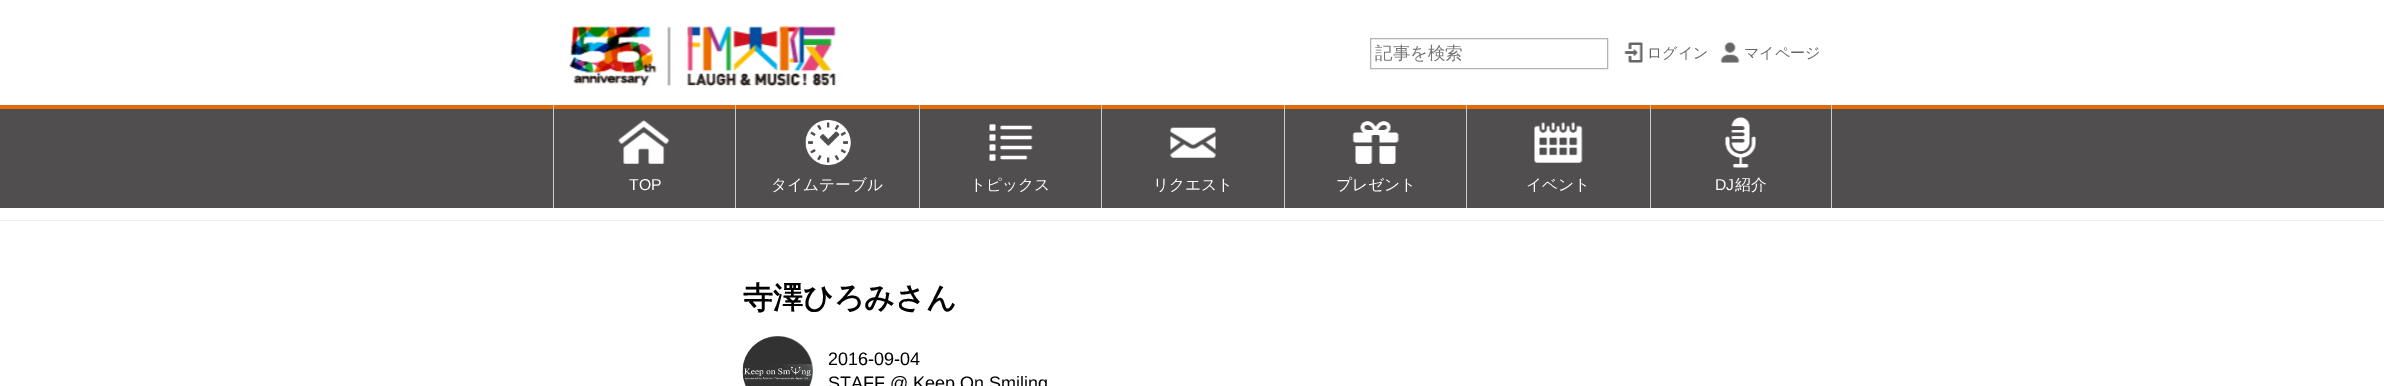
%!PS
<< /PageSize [2384 386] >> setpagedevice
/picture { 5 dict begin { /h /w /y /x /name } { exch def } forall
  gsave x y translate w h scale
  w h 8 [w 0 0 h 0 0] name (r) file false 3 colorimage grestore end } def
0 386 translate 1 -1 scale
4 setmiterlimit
1 setgray
0 0 2384 386 rectfill
(img1.rgb) 569 26 267 61 picture
0.702 setgray
1370.5 38.5 237 30 rectstroke
/WenQuanYiZenHei-Medium [17.5 0 0 -17.5 0 0] selectfont
0.459 setgray
1375 59 moveto (記事を検索) show
(img2.rgb) 1624 42 19 21 picture
/WenQuanYiZenHei-Medium [15 0 0 -15 0 0] selectfont
0.4 setgray
1647 58 moveto (ログイン) show
(img3.rgb) 1720 41 20 22 picture
1744 58 moveto (マイページ) show
0.318 0.306 0.31 setrgbcolor
0 109 2384 99 rectfill
(img4.rgb) 618 120 52 44 picture
0.894 0.42 0.016 setrgbcolor
0 105 2384 4 rectfill
0.8 setgray
553 105 1 103 rectfill
/LiberationSans-Regular [15.75 0 0 -15.75 0 0] selectfont
1 setgray
629 190 moveto (TOP) show
(img5.rgb) 805 120 46 45 picture
0.8 setgray
735 105 1 103 rectfill
/WenQuanYiZenHei-Medium [15.75 0 0 -15.75 0 0] selectfont
1 setgray
771 190 moveto (タイムテーブル) show
(img6.rgb) 989 124 44 37 picture
0.8 setgray
919 105 1 103 rectfill
1 setgray
970 190 moveto (トピックス) show
(img7.rgb) 1170 127 46 31 picture
0.8 setgray
1101 105 1 103 rectfill
1 setgray
1153 190 moveto (リクエスト) show
(img8.rgb) 1352 121 47 43 picture
0.8 setgray
1284 105 1 103 rectfill
1 setgray
1336 190 moveto (プレゼント) show
(img9.rgb) 1534 122 49 41 picture
0.8 setgray
1466 105 1 103 rectfill
1 setgray
1526 190 moveto (イベント) show
(img10.rgb) 1725 117 31 51 picture
0.8 setgray
1831 105 1 103 rectfill
1650 105 1 103 rectfill
/LiberationSans-Regular [15.75 0 0 -15.75 0 0] selectfont
1 setgray
1715 190 moveto (DJ) show
/WenQuanYiZenHei-Medium [15.75 0 0 -15.75 0 0] selectfont
1735 190 moveto (紹介) show
0.933 setgray
0 220 2384 1 rectfill
/WenQuanYiZenHei-Bold [30 0 0 -30 0 0] selectfont
0 setgray
743 308 moveto (寺澤ひろみさん) show
0.533 setgray
newpath 778 371 35 0 360 arc closepath fill
(img11.rgb) 742 336 71 50 picture
/LiberationSans-Regular [18 0 0 -18 0 0] selectfont
0 setgray
828 365 moveto (2016-09-04) show
828 389 moveto (STAFF @ Keep On Smiling) show
showpage
